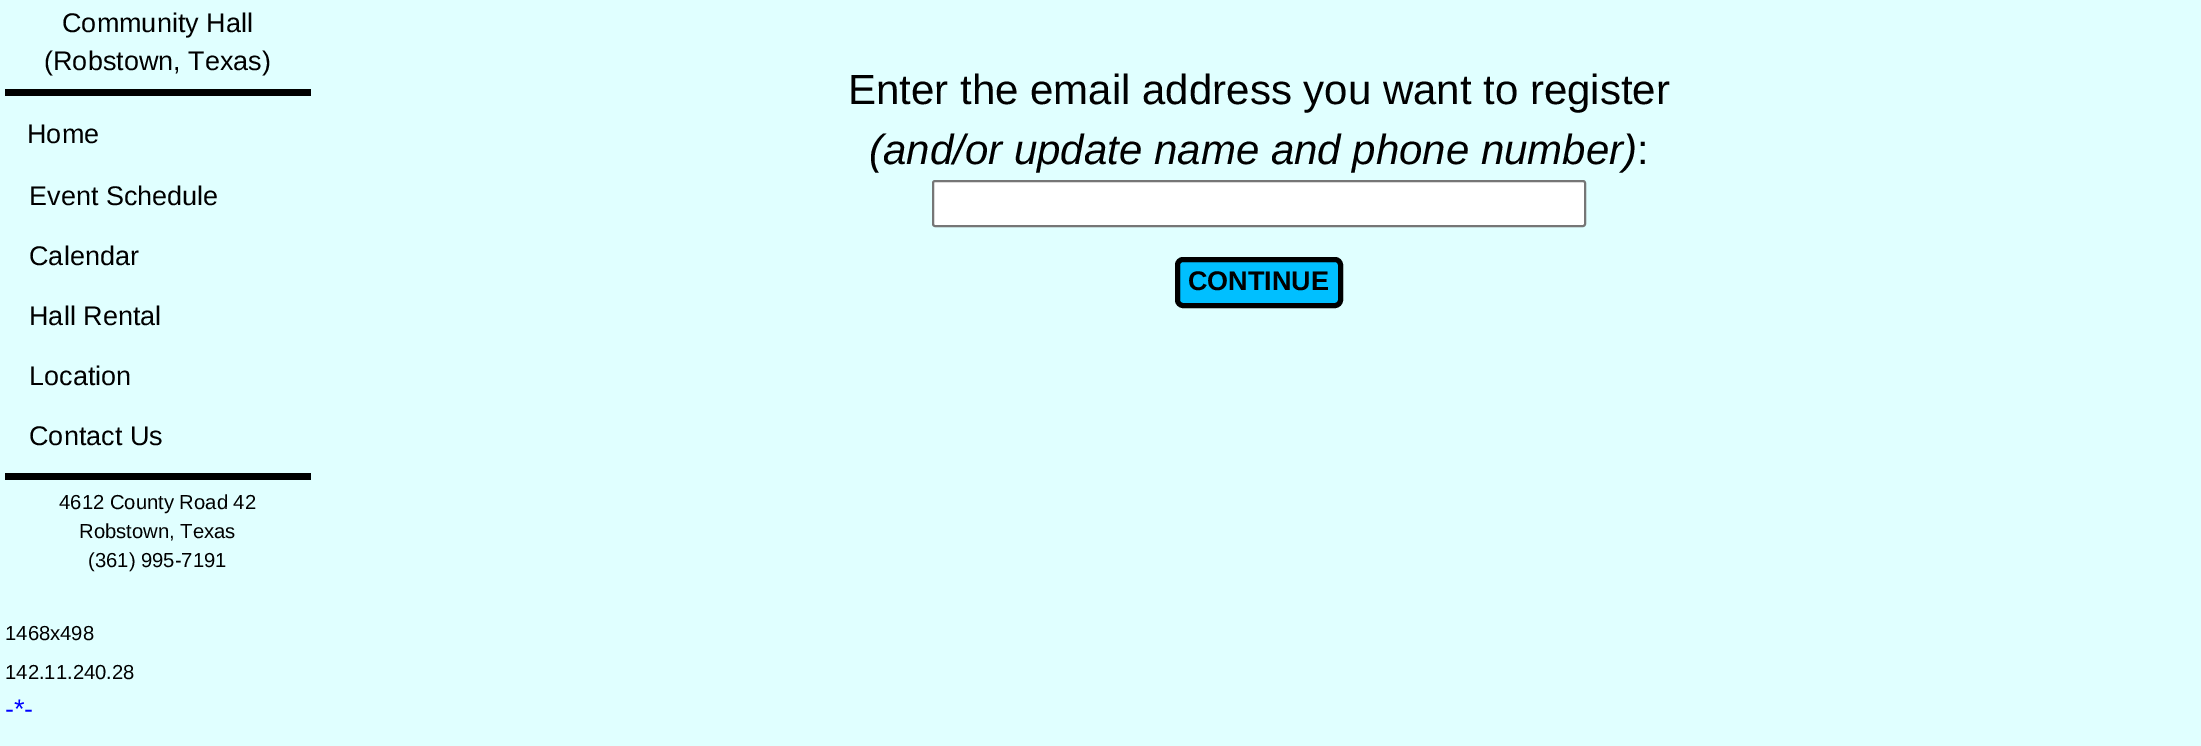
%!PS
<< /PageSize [2201 746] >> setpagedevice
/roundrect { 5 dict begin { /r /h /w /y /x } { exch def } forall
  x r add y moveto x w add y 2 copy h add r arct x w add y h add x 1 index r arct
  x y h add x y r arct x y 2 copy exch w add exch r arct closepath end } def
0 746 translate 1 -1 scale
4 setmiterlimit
0.878 1 1 setrgbcolor
0 0 2201 746 rectfill
/LiberationSans-Regular [27 0 0 -27 0 0] selectfont
0 setgray
62 32 moveto (Community Hall) show
44 70 moveto (\(Robstown, Texas\)) show
5 89 306 7 rectfill
27 143 moveto (Home) show
29 205 moveto (Event Schedule) show
29 265 moveto (Calendar) show
29 325 moveto (Hall Rental) show
29 385 moveto (Location) show
29 445 moveto (Contact Us) show
5 473 306 7 rectfill
/LiberationSans-Regular [20.25 0 0 -20.25 0 0] selectfont
59 509 moveto (4612 County Road 42) show
79 538 moveto (Robstown, Texas) show
88 567 moveto (\(361\) 995-7191) show
5 640 moveto (1468x498) show
5 679 moveto (142.11.240.28) show
/LiberationSans-Regular [27 0 0 -27 0 0] selectfont
0 0 1 setrgbcolor
5 718 moveto (-*-) show
/LiberationSans-Regular [42 0 0 -42 0 0] selectfont
0 setgray
848 104 moveto (Enter the email address you want to register) show
/LiberationSans-Italic [42 0 0 -42 0 0] selectfont
869 164 moveto (\(and/or update name and phone number\)) show
/LiberationSans-Regular [42 0 0 -42 0 0] selectfont
1637 164 moveto (:) show
1 setgray
933 181 652 45 2 roundrect gsave fill grestore
0.463 setgray
2 setlinewidth
stroke
0 0.749 1 setrgbcolor
1177.5 259.5 163 46 5.5 roundrect gsave fill grestore
0 setgray
5 setlinewidth
stroke
/LiberationSans-Bold [27 0 0 -27 0 0] selectfont
1188 290 moveto (CONTINUE) show
showpage
